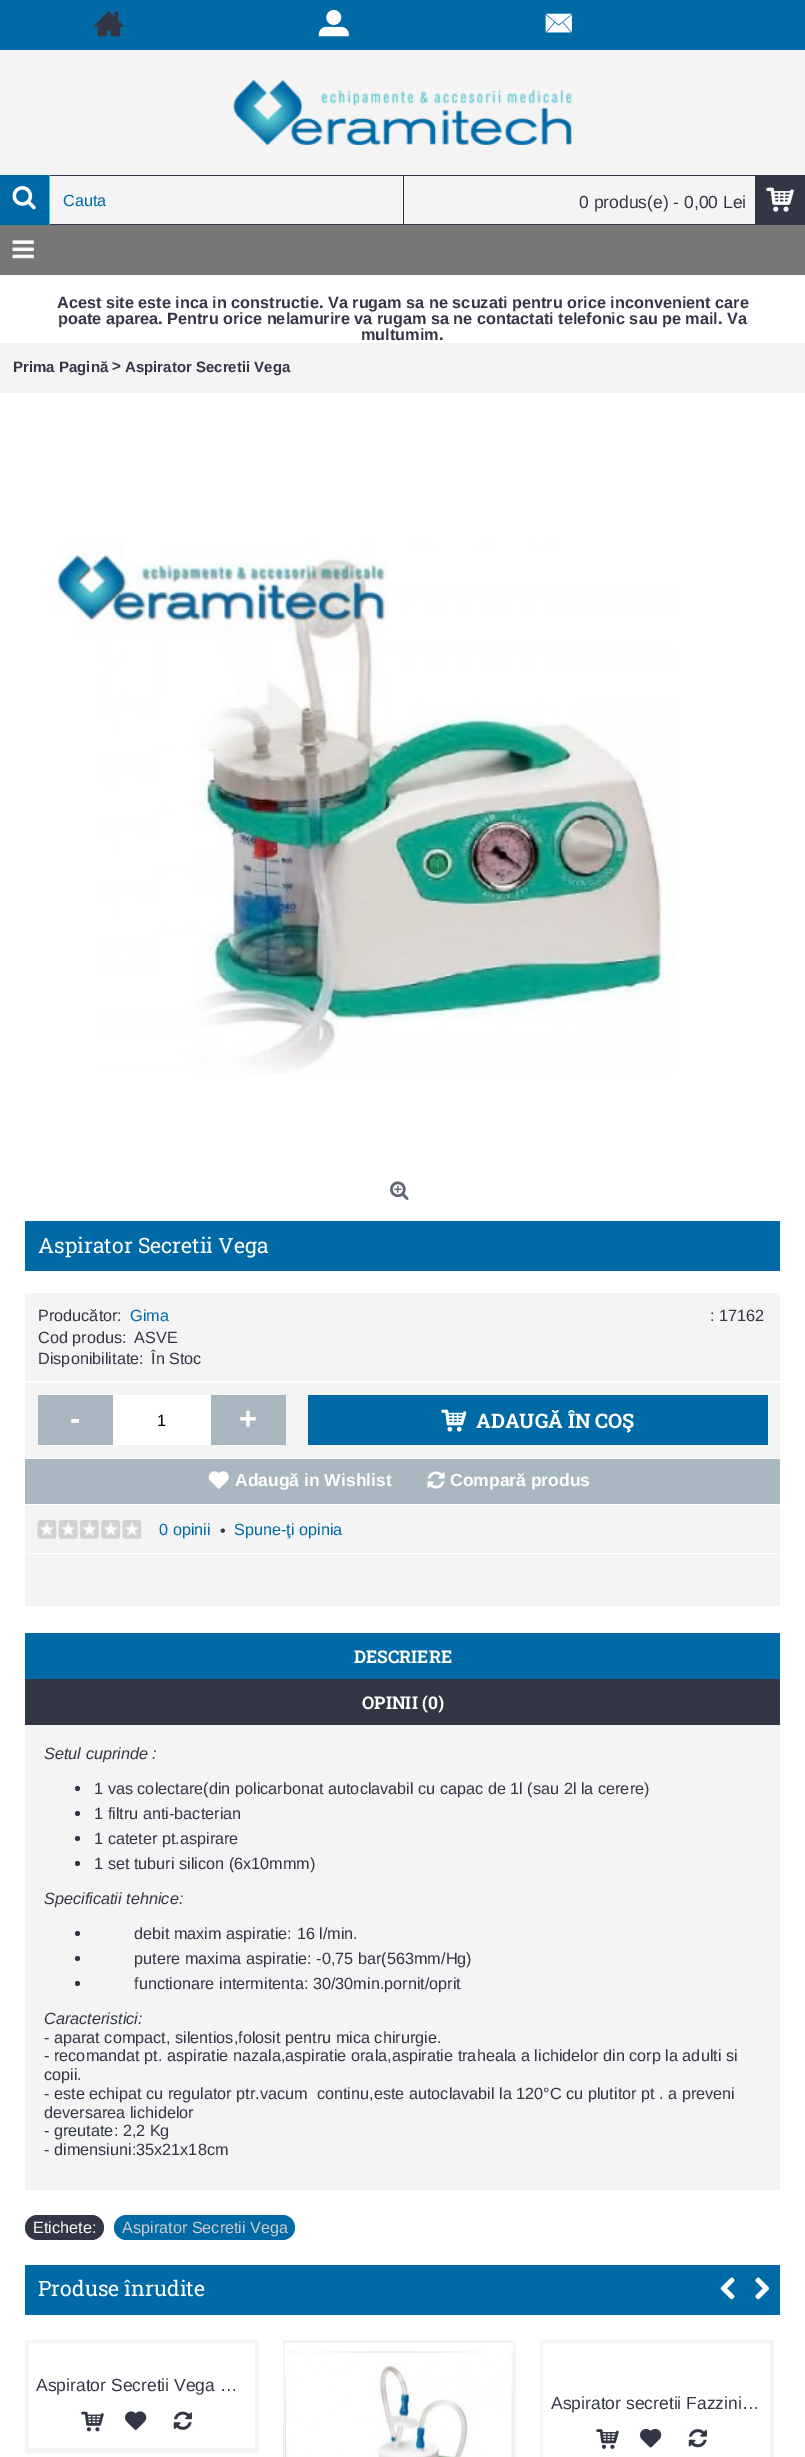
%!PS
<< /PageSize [805 2457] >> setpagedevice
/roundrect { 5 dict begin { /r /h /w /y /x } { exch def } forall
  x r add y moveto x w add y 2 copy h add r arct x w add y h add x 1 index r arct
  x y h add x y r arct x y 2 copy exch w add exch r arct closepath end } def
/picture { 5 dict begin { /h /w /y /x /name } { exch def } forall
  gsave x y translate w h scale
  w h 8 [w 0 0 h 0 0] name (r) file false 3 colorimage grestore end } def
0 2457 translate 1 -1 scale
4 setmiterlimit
1 setgray
0 0 805 2457 rectfill
0 0.416 0.651 setrgbcolor
0 0 805 50 rectfill
0.957 setgray
0 50 805 125 rectfill
(img1.rgb) 93 11 31 26 picture
(img2.rgb) 318 9 31 28 picture
(img3.rgb) 545 13 27 20 picture
(img4.rgb) 233 80 339 65 picture
0 0.416 0.651 setrgbcolor
0 175 49 50 rectfill
0.333 0.773 0.816 setrgbcolor
49 175 1 50 rectfill
(img5.rgb) 12 186 24 24 picture
0.957 setgray
50 176 353 48 rectfill
0.2 0.216 0.271 setrgbcolor
50 175 755 1 rectfill
50 224 705 1 rectfill
/LiberationSans-Regular [16.25 0 0 -16.25 0 0] selectfont
0 0.416 0.651 setrgbcolor
63 206 moveto (Cauta) show
0.957 setgray
404 176 351 48 rectfill
0.2 0.216 0.271 setrgbcolor
403 175 1 50 rectfill
/LiberationSans-Regular [17.5 0 0 -17.5 0 0] selectfont
579 208 moveto (0 produs\(e\) - 0,00 Lei) show
755 176 50 49 rectfill
(img6.rgb) 766 187 28 25 picture
0.467 setgray
0 225 805 50 rectfill
(img7.rgb) 12 240 22 19 picture
/LiberationSans-Bold [16.25 0 0 -16.25 0 0] selectfont
0.2 0.216 0.271 setrgbcolor
57 308 moveto (Acest site este inca in constructie. Va rugam sa ne scuzati pentru orice inconvenient care) show
58 324 moveto (poate aparea. Pentru orice nelamurire va rugam sa ne contactati telefonic sau pe mail. Va) show
361 340 moveto (multumim.) show
0.957 setgray
0 343 805 50 rectfill
/LiberationSans-Bold [15 0 0 -15 0 0] selectfont
0.2 0.216 0.271 setrgbcolor
13 372 moveto (Prima Pagină) show
112 371 moveto (>) show
125 372 moveto (Aspirator Secretii Vega) show
(img8.rgb) 49 538 629 536 picture
(img9.rgb) 390 1181 19 19 picture
0 0.416 0.651 setrgbcolor
25 1221 755 50 rectfill
/RobotoSlab-Regular [21.25 0 0 -21.25 0 0] selectfont
1 setgray
38 1253 moveto (Aspirator Secretii Vega) show
0.957 setgray
25 1293 755 88 rectfill
/LiberationSans-Regular [16.25 0 0 -16.25 0 0] selectfont
0.2 0.216 0.271 setrgbcolor
38 1321 moveto (Producător:) show
0 0.416 0.651 setrgbcolor
130 1321 moveto (Gima) show
0.2 0.216 0.271 setrgbcolor
710 1321 moveto (: 17162) show
38 1343 moveto (Cod produs:) show
134 1343 moveto (ASVE) show
38 1364 moveto (Disponibilitate:) show
151 1364 moveto (În Stoc) show
0.957 setgray
25 1383 755 75 rectfill
0.663 0.722 0.753 setrgbcolor
38 1395 75 50 rectfill
/LiberationSans-Bold [31 0 0 -31 0 0] selectfont
1 setgray
70 1429 moveto (-) show
113 1395 98 50 rectfill
/LiberationSans-Regular [16.25 0 0 -16.25 0 0] selectfont
0 setgray
157 1426 moveto (1) show
0.663 0.722 0.753 setrgbcolor
211 1395 75 50 rectfill
/LiberationSans-Bold [31 0 0 -31 0 0] selectfont
1 setgray
239 1429 moveto (+) show
0 0.416 0.651 setrgbcolor
308 1395 460 50 rectfill
(img10.rgb) 441 1409 26 23 picture
/RobotoSlab-Bold [20 0 0 -20 0 0] selectfont
1 setgray
476 1428 moveto (ADAUGĂ ÎN COŞ) show
0.663 0.722 0.753 setrgbcolor
25 1459 755 45 rectfill
(img11.rgb) 208 1471 21 18 picture
/LiberationSans-Bold [17.5 0 0 -17.5 0 0] selectfont
1 setgray
235 1486 moveto (Adaugă in Wishlist) show
(img12.rgb) 427 1471 18 18 picture
450 1486 moveto (Compară produs) show
0.957 setgray
25 1505 755 48 rectfill
(img13.rgb) 37 1520 105 19 picture
/LiberationSans-Regular [16.25 0 0 -16.25 0 0] selectfont
0 0.416 0.651 setrgbcolor
159 1535 moveto (0 opinii) show
0.2 0.216 0.271 setrgbcolor
220 1536 moveto (•) show
0 0.416 0.651 setrgbcolor
234 1535 moveto (Spune-ţi opinia) show
0.957 setgray
25 1554 755 52 rectfill
0 0.416 0.651 setrgbcolor
25 1633 755 46 rectfill
/RobotoSlab-Bold [17.5 0 0 -17.5 0 0] selectfont
1 setgray
354 1663 moveto (DESCRIERE) show
0.2 0.216 0.271 setrgbcolor
25 1679 755 46 rectfill
1 setgray
362 1709 moveto (OPINII \(0\)) show
0.957 setgray
25 1725 755 465 rectfill
/LiberationSans-Italic [16.25 0 0 -16.25 0 0] selectfont
0.2 0.216 0.271 setrgbcolor
44 1759 moveto (Setul cuprinde :) show
newpath 77.5 1788.5 2.5 0 360 arc closepath fill
/LiberationSans-Regular [16.25 0 0 -16.25 0 0] selectfont
94 1794 moveto (1 vas colectare\(din policarbonat autoclavabil cu capac de 1l \(sau 2l la cerere\)) show
newpath 77.5 1813.5 2.5 0 360 arc closepath fill
94 1819 moveto (1 filtru anti-bacterian) show
newpath 77.5 1838.5 2.5 0 360 arc closepath fill
94 1844 moveto (1 cateter pt.aspirare) show
newpath 77.5 1863.5 2.5 0 360 arc closepath fill
94 1869 moveto (1 set tuburi silicon \(6x10mmm\)) show
/LiberationSans-Italic [16.25 0 0 -16.25 0 0] selectfont
44 1904 moveto (Specificatii tehnice:) show
newpath 77.5 1933.5 2.5 0 360 arc closepath fill
/LiberationSans-Regular [16.25 0 0 -16.25 0 0] selectfont
134 1939 moveto (debit maxim aspiratie: 16 l/min.) show
newpath 77.5 1958.5 2.5 0 360 arc closepath fill
134 1964 moveto (putere maxima aspiratie: -0,75 bar\(563mm/Hg\)) show
newpath 77.5 1983.5 2.5 0 360 arc closepath fill
134 1989 moveto (functionare intermitenta: 30/30min.pornit/oprit) show
/LiberationSans-Italic [16.25 0 0 -16.25 0 0] selectfont
44 2024 moveto (Caracteristici:) show
/LiberationSans-Regular [16.25 0 0 -16.25 0 0] selectfont
44 2043 moveto (- aparat compact, silentios,folosit pentru mica chirurgie.) show
44 2061 moveto (- recomandat pt. aspiratie nazala,aspiratie orala,aspiratie traheala a lichidelor din corp la adulti si) show
44 2080 moveto (copii.) show
44 2099 moveto (- este echipat cu regulator ptr.vacum  continu,este autoclavabil la 120°C cu plutitor pt . a preveni) show
44 2118 moveto (deversarea lichidelor) show
44 2136 moveto (- greutate: 2,2 Kg) show
44 2155 moveto (- dimensiuni:35x21x18cm) show
25 2215 79 25 12.5 roundrect fill
1 setgray
33 2233 moveto (Etichete:) show
0 0.416 0.651 setrgbcolor
114 2215 181 25 12.5 roundrect fill
0.8 setgray
122 2233 moveto (Aspirator Secretii Vega) show
0 0.416 0.651 setrgbcolor
25 2265 755 50 rectfill
/RobotoSlab-Regular [21.25 0 0 -21.25 0 0] selectfont
1 setgray
38 2296 moveto (Produse înrudite) show
(img14.rgb) 720 2277 15 23 picture
(img15.rgb) 755 2277 15 23 picture
0.961 setgray
newpath 26 2451 moveto 26 2453 lineto 259 2453 lineto 259 2341 lineto 258 2341 lineto 258 2451 lineto closepath fill
0.957 setgray
3 setlinewidth
26.5 2341.5 230 108 rectstroke
/LiberationSans-Regular [17.5 0 0 -17.5 0 0] selectfont
0.2 0.216 0.271 setrgbcolor
36 2391 moveto (Aspirator Secretii Vega …) show
(img16.rgb) 81 2411 23 21 picture
(img17.rgb) 125 2411 22 19 picture
(img18.rgb) 173 2411 19 19 picture
0.961 setgray
newpath 284 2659 moveto 284 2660 lineto 516 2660 lineto 516 2341 lineto 515 2341 lineto 515 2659 lineto closepath fill
0.957 setgray
284.5 2341.5 229 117 rectstroke
(img19.rgb) 285 2343 228 114 picture
0.961 setgray
newpath 541 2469 moveto 541 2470 lineto 774 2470 lineto 774 2341 lineto 772 2341 lineto 772 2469 lineto closepath fill
0.957 setgray
541.5 2341.5 230 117 rectstroke
0.2 0.216 0.271 setrgbcolor
551 2409 moveto (Aspirator secretii Fazzini…) show
(img20.rgb) 596 2429 23 20 picture
(img21.rgb) 640 2428 22 20 picture
(img22.rgb) 688 2429 19 19 picture
showpage
